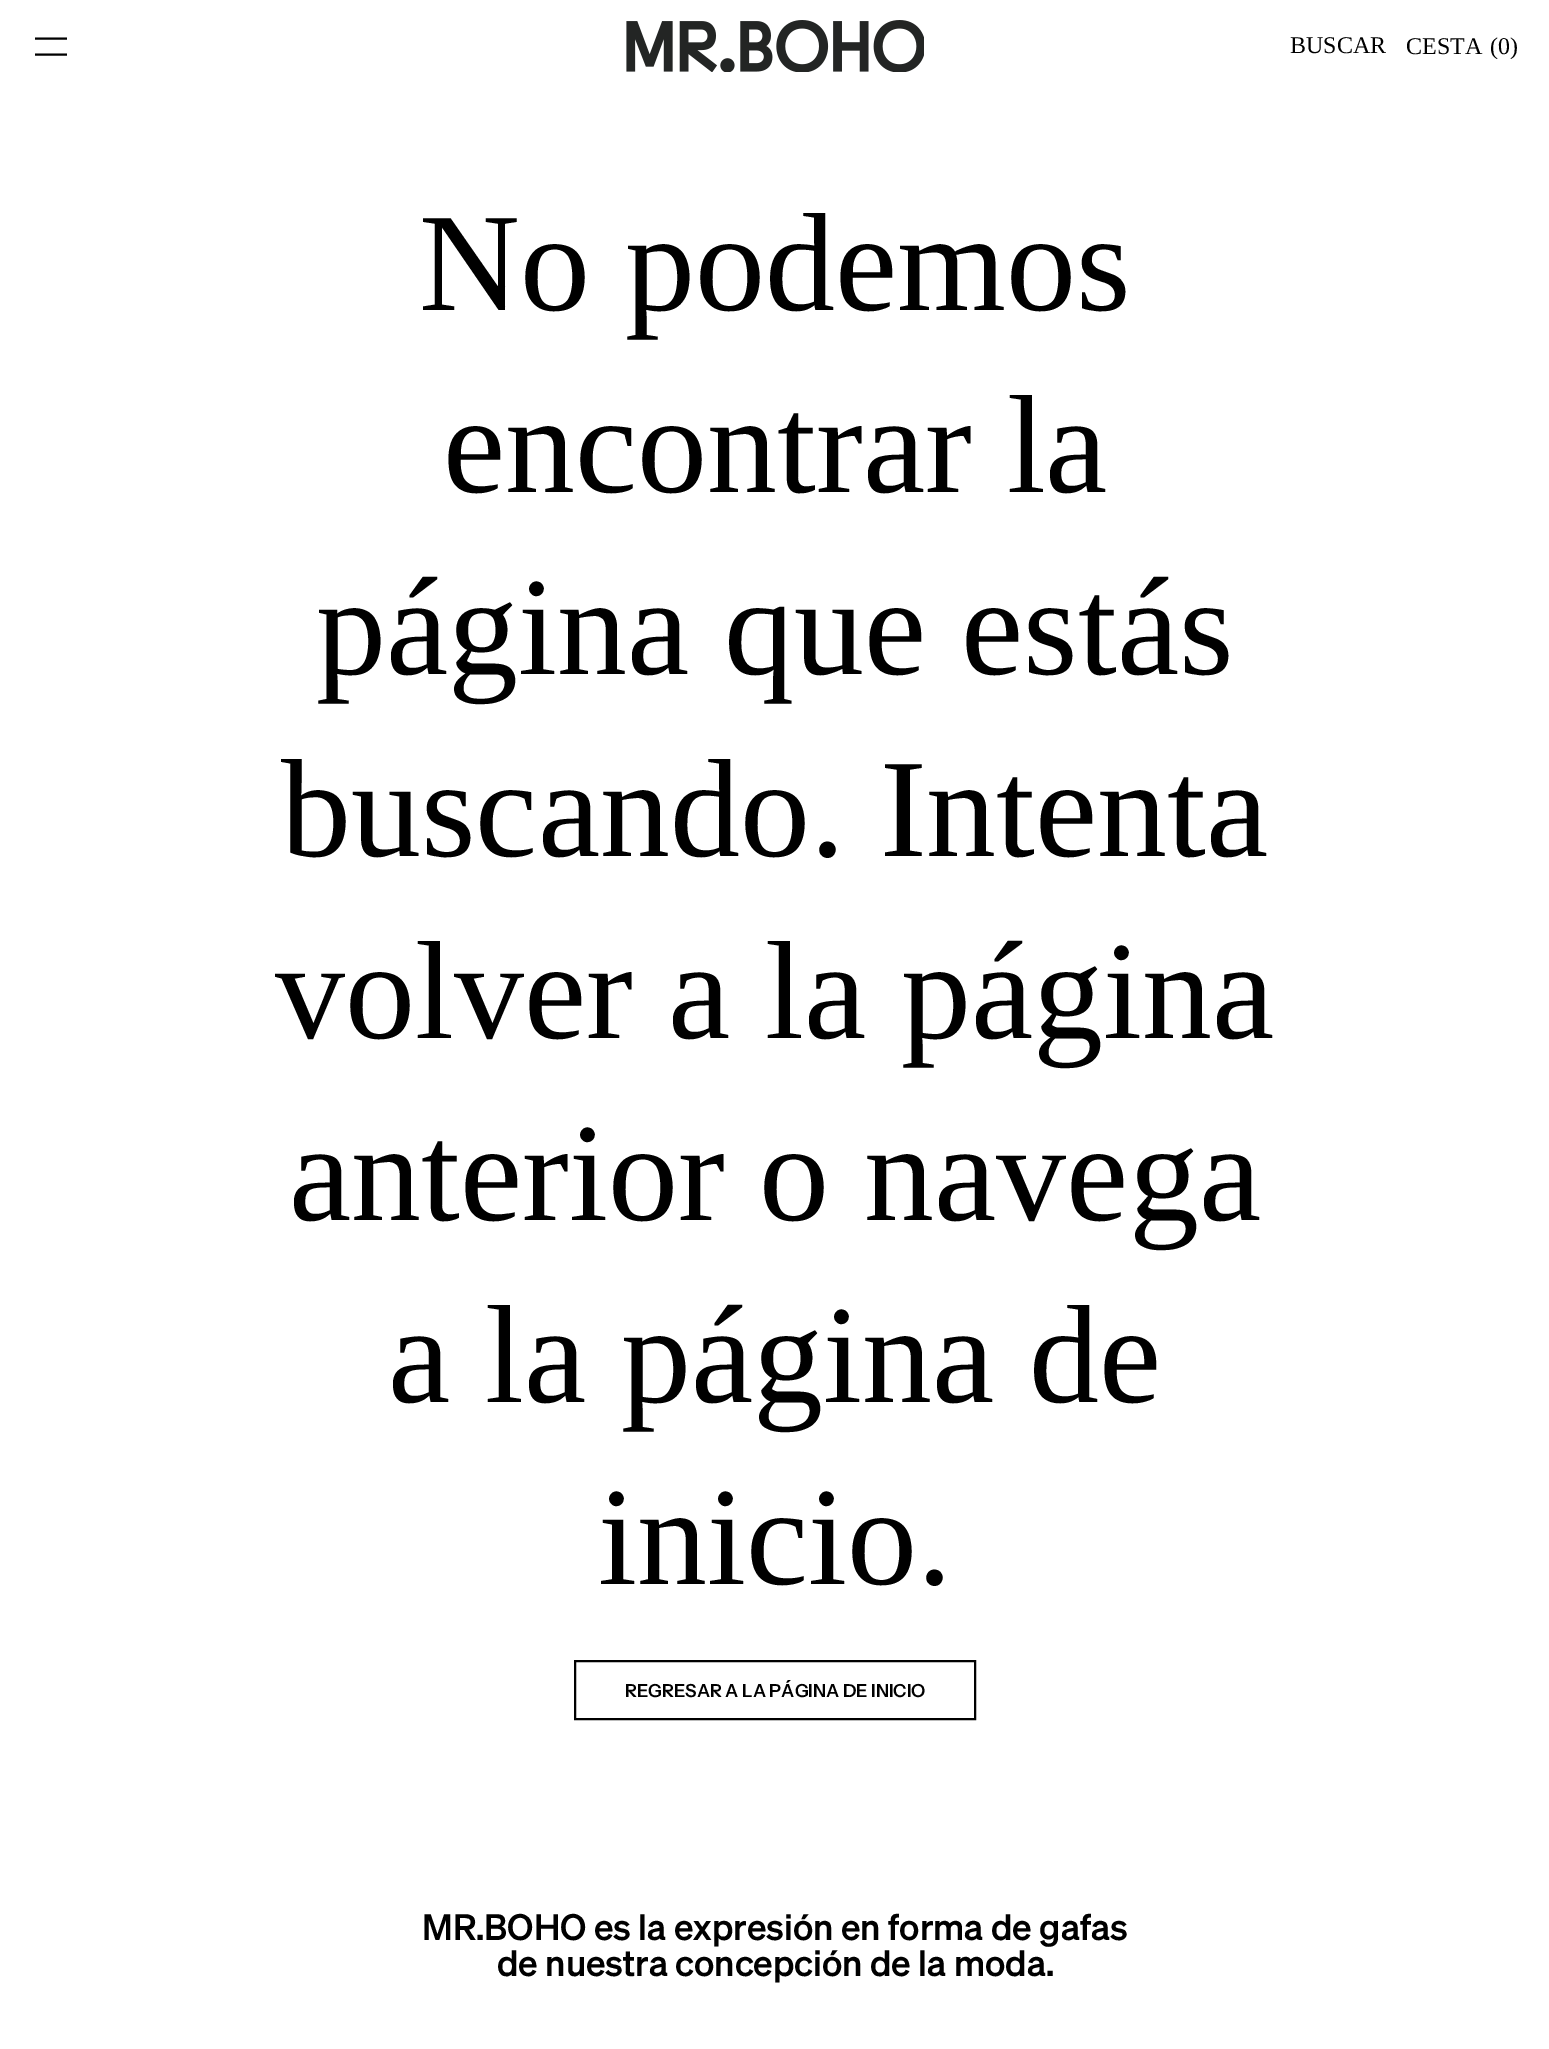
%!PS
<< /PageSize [1549 2049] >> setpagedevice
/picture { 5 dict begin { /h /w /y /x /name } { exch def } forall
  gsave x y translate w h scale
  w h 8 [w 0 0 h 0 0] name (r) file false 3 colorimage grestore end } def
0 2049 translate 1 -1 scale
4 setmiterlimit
1 setgray
0 0 1549 2049 rectfill
0 setgray
2 setlinewidth
newpath 35 38.5 moveto 67 38.5 lineto 35 54.5 moveto 67 54.5 lineto stroke
(img1.rgb) 626 20 298 52 picture
/LiberationSerif-Regular [24 0 0 -24 0 0] selectfont
1290 53 moveto (BUSCAR) show
1406 54 moveto (CESTA) show
1490 54 moveto (\(0\)) show
/LiberationSerif-Regular [140 0 0 -140 0 0] selectfont
419 310 moveto (No podemos) show
443 492 moveto (encontrar la) show
316 674 moveto (página que estás) show
281 856 moveto (buscando. Intenta) show
275 1038 moveto (volver a la página) show
289 1220 moveto (anterior o navega) show
388 1402 moveto (a la página de) show
598 1584 moveto (inicio.) show
575 1661 400 58 rectstroke
/InstrumentSans-SemiBold [18 0 0 -18 0 0] selectfont
625 1697 moveto (REGRESAR A LA PÁGINA DE INICIO) show
/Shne-Medium [36 0 0 -36 0 0] selectfont
422 1940 moveto (MR.BOHO es la expresión en forma de gafas) show
497 1976 moveto (de nuestra concepción de la moda.) show
showpage
